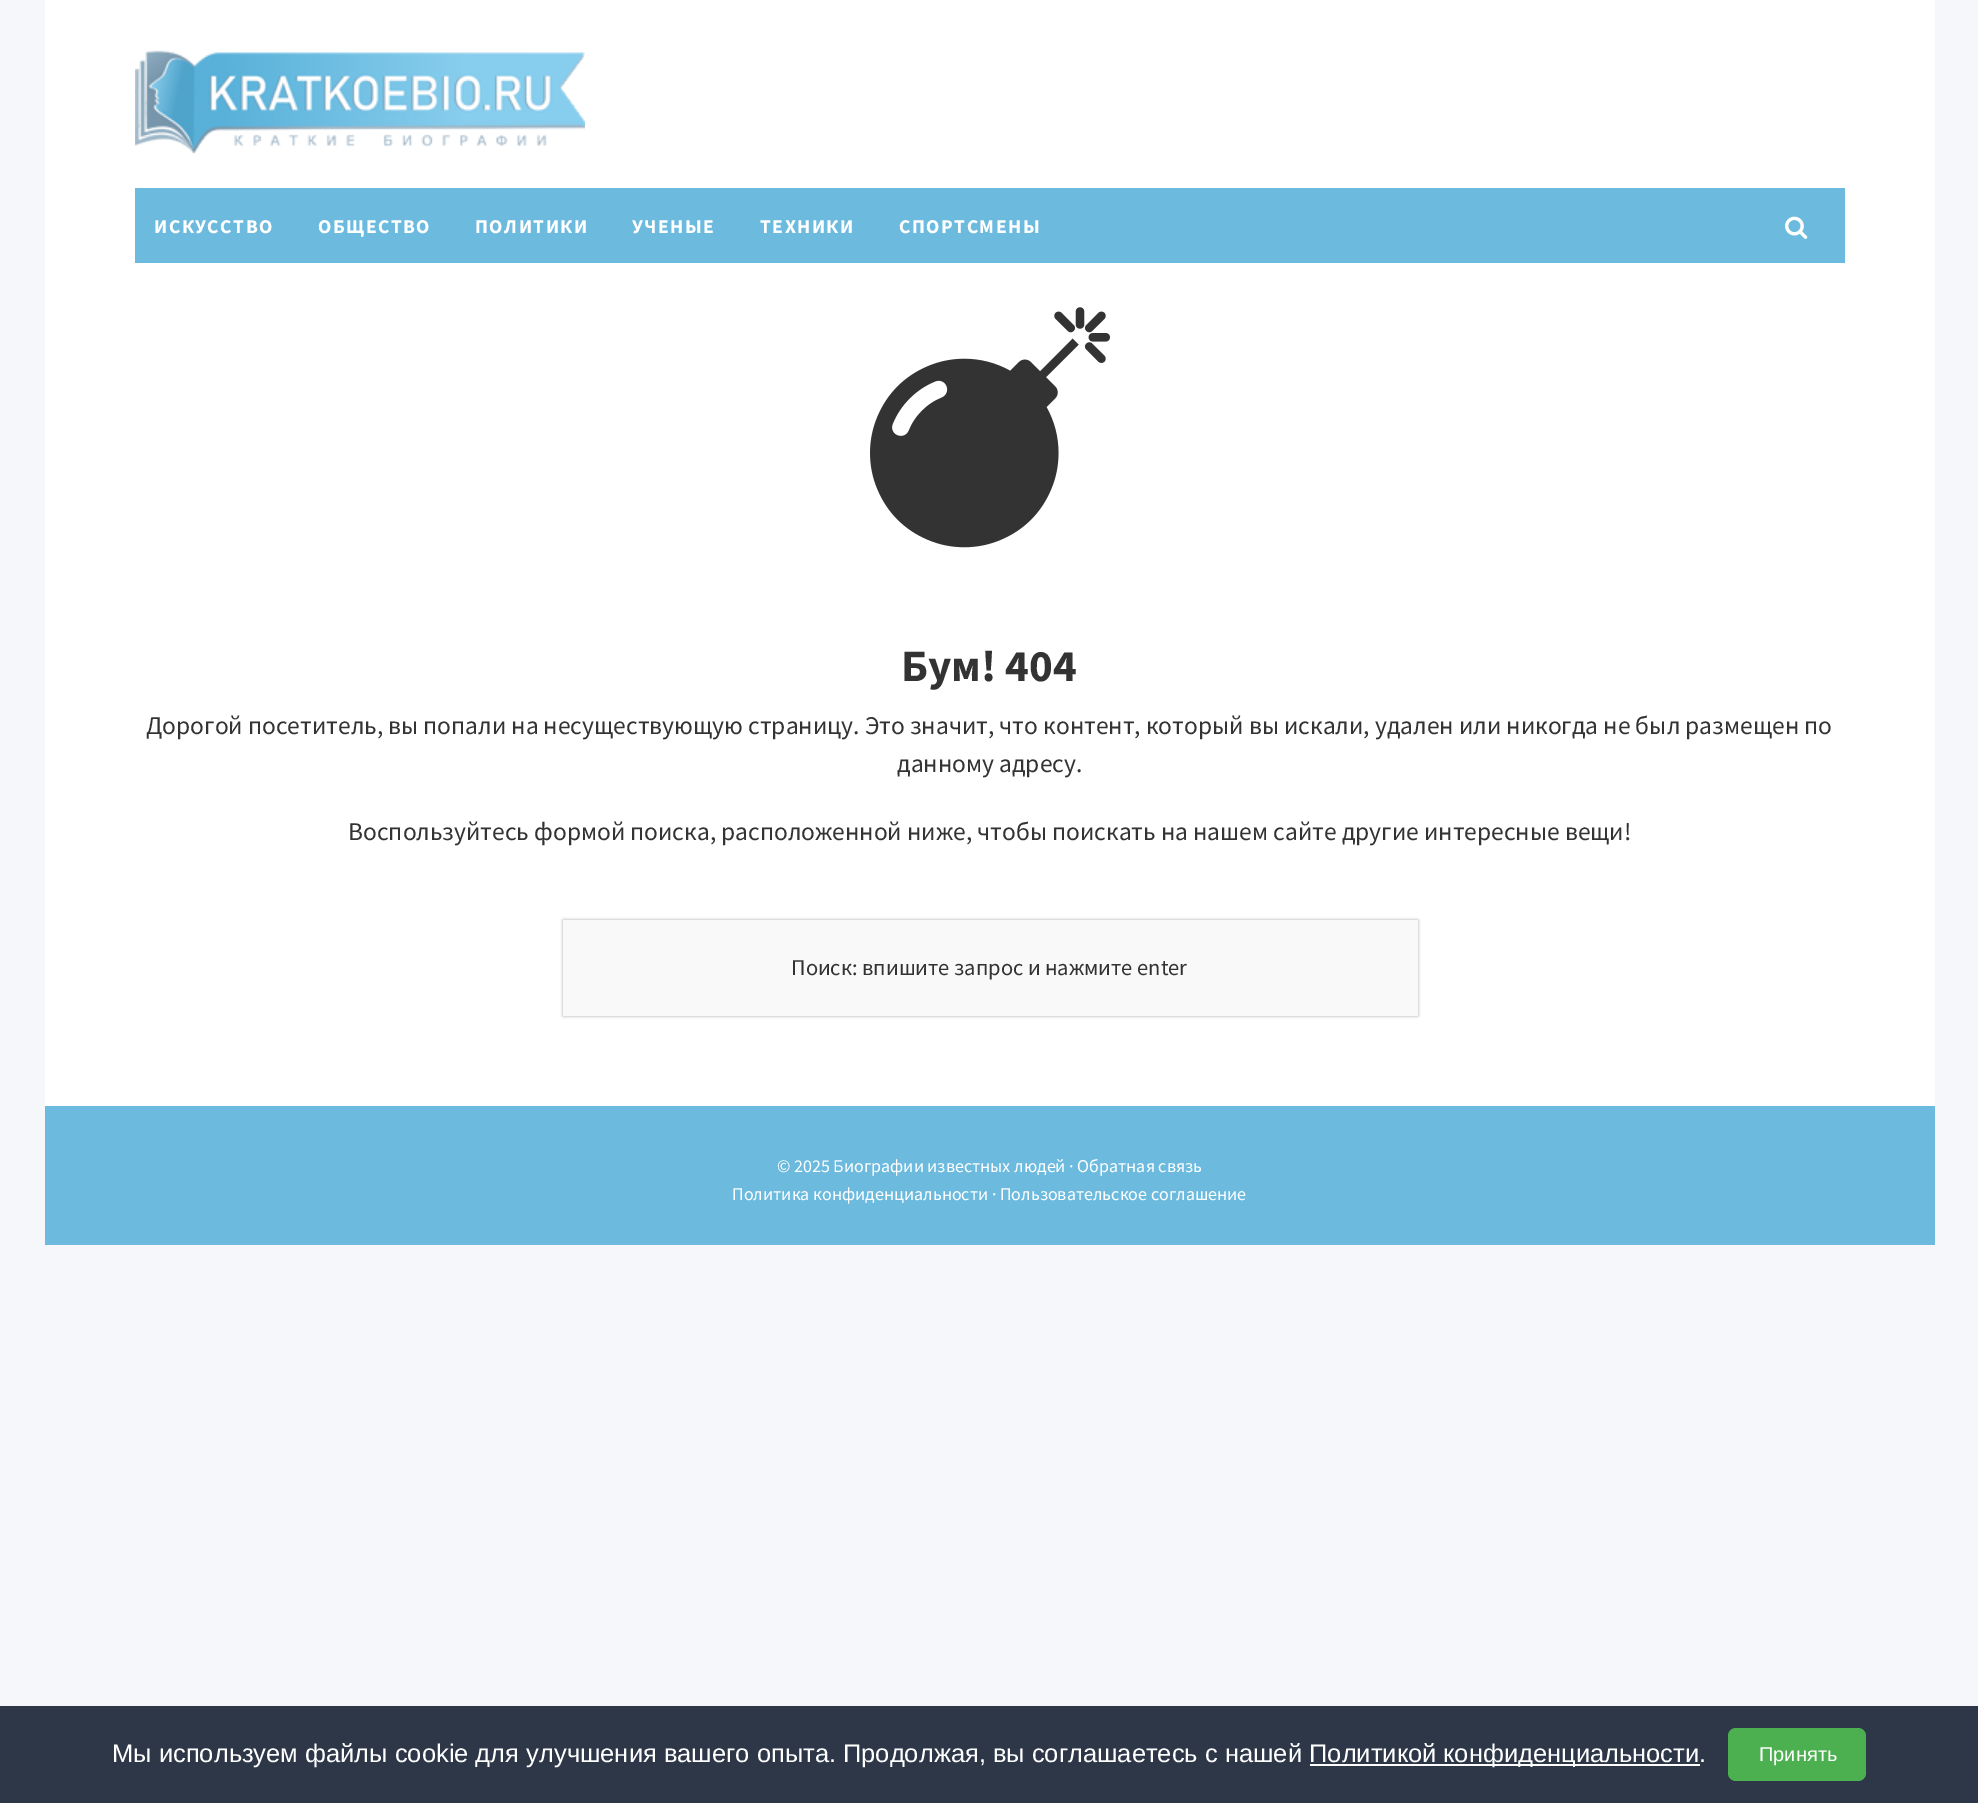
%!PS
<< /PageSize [1978 1803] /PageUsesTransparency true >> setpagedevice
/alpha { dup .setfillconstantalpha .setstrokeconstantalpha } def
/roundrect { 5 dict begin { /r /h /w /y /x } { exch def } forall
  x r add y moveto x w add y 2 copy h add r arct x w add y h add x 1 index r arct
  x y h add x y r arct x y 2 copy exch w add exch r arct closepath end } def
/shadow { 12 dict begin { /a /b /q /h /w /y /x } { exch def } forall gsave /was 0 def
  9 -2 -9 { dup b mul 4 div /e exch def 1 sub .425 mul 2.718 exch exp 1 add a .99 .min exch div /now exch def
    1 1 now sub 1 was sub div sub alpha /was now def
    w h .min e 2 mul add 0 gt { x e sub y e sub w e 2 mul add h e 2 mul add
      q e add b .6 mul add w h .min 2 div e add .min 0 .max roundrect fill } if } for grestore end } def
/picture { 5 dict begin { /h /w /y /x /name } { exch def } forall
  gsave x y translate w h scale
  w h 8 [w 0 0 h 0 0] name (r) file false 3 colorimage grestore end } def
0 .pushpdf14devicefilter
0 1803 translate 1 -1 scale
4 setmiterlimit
0.965 0.969 0.984 setrgbcolor
0 0 1978 1803 rectfill
1 setgray
45 0 1890 1106 rectfill
(img1.rgb) 135 50 450 104 picture
0.424 0.733 0.875 setrgbcolor
135 188 1710 75 rectfill
/SourceSansPro-Bold [19.5 0 0 -19.5 0 0] selectfont
1 setgray
154 233 moveto 1.5 0 (ИСКУССТВО) ashow
318 233 moveto 1.5 0 (ОБЩЕСТВО) ashow
475 233 moveto 1.5 0 (ПОЛИТИКИ) ashow
632 233 moveto 1.5 0 (УЧЕНЫЕ) ashow
760 233 moveto 1.5 0 (ТЕХНИКИ) ashow
899 233 moveto 1.5 0 (СПОРТСМЕНЫ) ashow
(img2.rgb) 1785 216 23 23 picture
(img3.rgb) 870 307 240 241 picture
/SourceSansPro-Bold [45 0 0 -45 0 0] selectfont
0.2 setgray
901 681 moveto (Бум! 404) show
/SourceSansPro-Regular [25.5 0 0 -25.5 0 0] selectfont
146 734 moveto (Дорогой посетитель, вы попали на несуществующую страницу. Это значит, что контент, который вы искали, удален или никогда не был размещен по) show
897 772 moveto (данному адресу.) show
348 840 moveto (Воспользуйтесь формой поиска, расположенной ниже, чтобы поискать на нашем сайте другие интересные вещи!) show
0.667 setgray
563 920 855 96 0 1.5 1 shadow
0.976 setgray
563 920 855 96 rectfill
/SourceSansPro-Regular [22.5 0 0 -22.5 0 0] selectfont
0.2 setgray
791 975 moveto (Поиск: впишите запрос и нажмите enter) show
0.424 0.733 0.875 setrgbcolor
45 1106 1890 139 rectfill
/SourceSansPro-Regular [18 0 0 -18 0 0] selectfont
1 setgray
777 1172 moveto (© 2025 Биографии известных людей · Обратная связь) show
732 1200 moveto (Политика конфиденциальности · Пользовательское соглашение) show
0.176 0.216 0.282 setrgbcolor
0 1706 1978 97 rectfill
/LiberationSans-Regular [25.5 0 0 -25.5 0 0] selectfont
1 setgray
112 1762 moveto (Мы используем файлы cookie для улучшения вашего опыта. Продолжая, вы соглашаетесь с нашей) show
1310 1764 390 2 rectfill
1309 1762 moveto (Политикой конфиденциальности.) show
0.298 0.686 0.314 setrgbcolor
1728 1728 138 53 8 roundrect fill
/LiberationSans-Regular [20 0 0 -20 0 0] selectfont
1 setgray
1759 1761 moveto (Принять) show
.poppdf14devicefilter showpage
